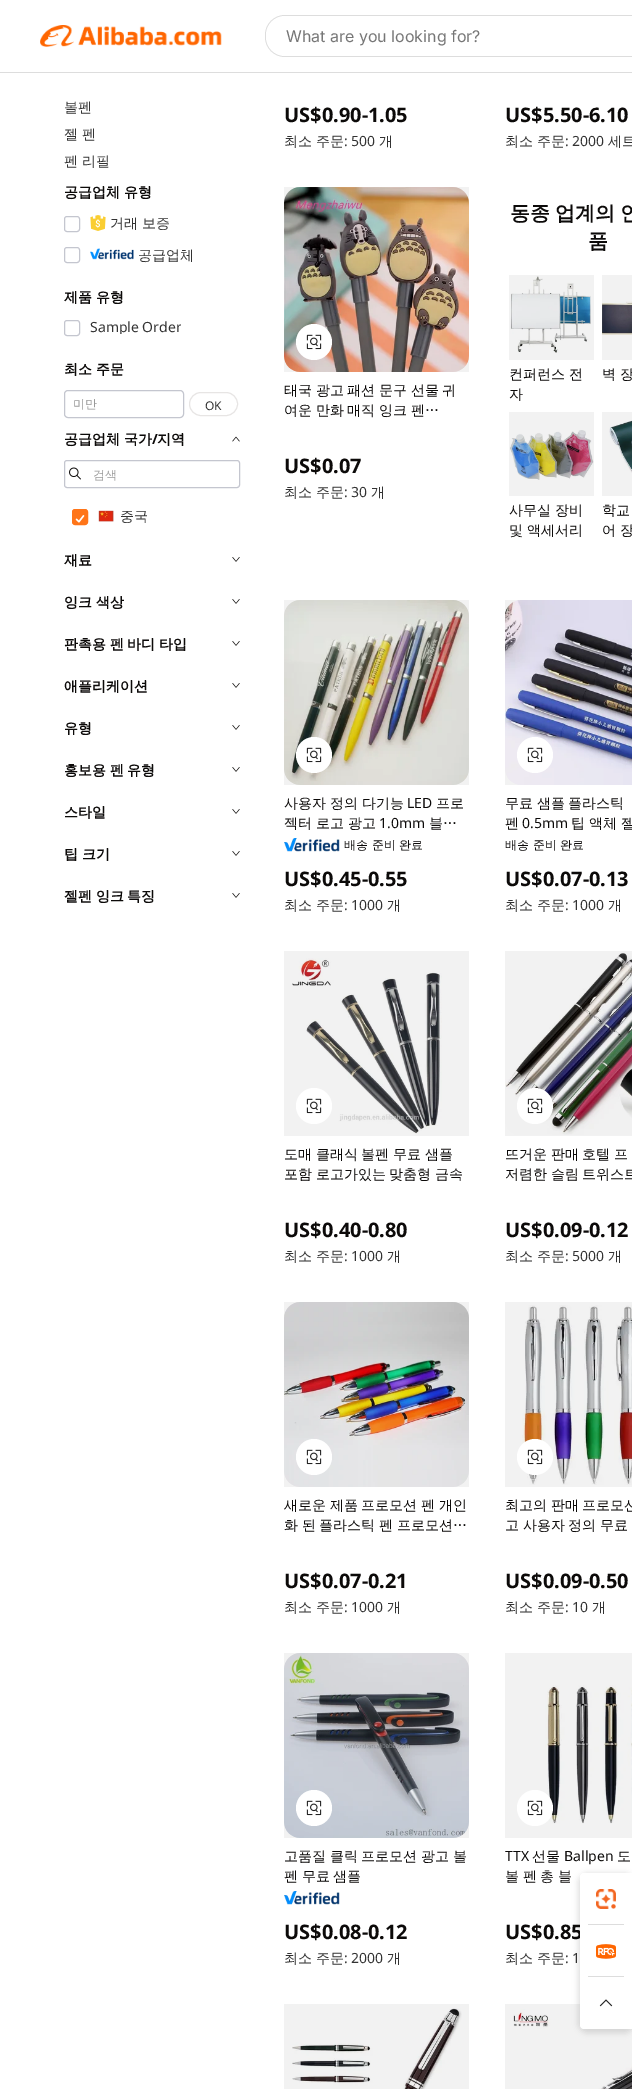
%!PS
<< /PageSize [632 2089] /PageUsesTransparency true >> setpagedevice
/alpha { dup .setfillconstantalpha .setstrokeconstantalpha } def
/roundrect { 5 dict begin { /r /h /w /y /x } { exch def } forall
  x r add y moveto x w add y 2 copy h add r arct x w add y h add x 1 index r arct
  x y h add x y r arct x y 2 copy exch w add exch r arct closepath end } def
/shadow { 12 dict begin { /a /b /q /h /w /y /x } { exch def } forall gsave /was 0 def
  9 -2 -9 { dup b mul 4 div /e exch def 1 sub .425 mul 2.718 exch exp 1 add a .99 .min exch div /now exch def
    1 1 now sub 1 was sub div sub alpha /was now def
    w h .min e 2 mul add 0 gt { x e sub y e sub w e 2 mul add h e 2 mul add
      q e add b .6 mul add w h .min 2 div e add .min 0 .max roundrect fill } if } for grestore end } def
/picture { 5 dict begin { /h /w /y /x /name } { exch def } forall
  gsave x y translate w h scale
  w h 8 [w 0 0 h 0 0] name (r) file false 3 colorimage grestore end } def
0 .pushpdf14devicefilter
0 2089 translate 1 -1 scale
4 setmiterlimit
1 setgray
0 0 632 2089 rectfill
0.867 setgray
0 72 632 1 rectfill
(img1.rgb) 40 25 182 22 picture
265 15 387 42 20 roundrect fill
1 setgray
266 16 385 40 19 roundrect fill
/Inter-Regular [16 0 0 -16 0 0] selectfont
0.463 setgray
286 42 moveto (What are you looking for?) show
/WenQuanYiZenHei-Medium [14 0 0 -14 0 0] selectfont
0.2 setgray
64 112 moveto (볼펜) show
64 139 moveto -0.5 0 32 (젤 펜) widthshow
64 166 moveto -0.5 0 32 (펜 리필) widthshow
/WenQuanYiZenHei-Bold [14 0 0 -14 0 0] selectfont
0.047 0.039 0.035 setrgbcolor
64 197 moveto -0.5 0 32 (공급업체 유형) widthshow
0.769 0.776 0.812 setrgbcolor
64.5 216.5 15 15 2.5 roundrect stroke
(img2.rgb) 90 215 16 16 picture
/WenQuanYiZenHei-Medium [14 0 0 -14 0 0] selectfont
0.2 setgray
110 228 moveto -0.5 0 32 (거래 보증) widthshow
0.769 0.776 0.812 setrgbcolor
64.5 247.5 15 15 2.5 roundrect stroke
(img3.rgb) 90 248 44 12 picture
0.2 setgray
138 260 moveto (공급업체) show
/WenQuanYiZenHei-Bold [14 0 0 -14 0 0] selectfont
0.047 0.039 0.035 setrgbcolor
64 302 moveto -0.5 0 32 (제품 유형) widthshow
0.769 0.776 0.812 setrgbcolor
64.5 320.5 15 15 2.5 roundrect stroke
gsave
90 320 91 14 rectclip
/NotoSans-Regular [14 0 0 -14 0 0] selectfont
0.2 setgray
90 332 moveto (Sample Order) show
grestore
0.047 0.039 0.035 setrgbcolor
64 374 moveto -0.5 0 32 (최소 주문) widthshow
0.769 0.776 0.812 setrgbcolor
64.5 390.5 119 27 3.5 roundrect stroke
/WenQuanYiZenHei-Medium [12 0 0 -12 0 0] selectfont
0.6 setgray
73 408 moveto (미만) show
0.906 0.898 0.894 setrgbcolor
189.5 392.5 48 23 11.5 roundrect stroke
/NotoSans-Regular [12 0 0 -12 0 0] selectfont
0.2 setgray
205 410 moveto (OK) show
/WenQuanYiZenHei-Bold [14 0 0 -14 0 0] selectfont
0.047 0.039 0.035 setrgbcolor
64 444 moveto -0.5 0 32 (공급업체 국가) widthshow
/NotoSans-Bold [14 0 0 -14 0 0] selectfont
152 444 moveto (/) show
/WenQuanYiZenHei-Bold [14 0 0 -14 0 0] selectfont
157 444 moveto (지역) show
(img4.rgb) 232 436 8 6 picture
0.769 0.776 0.812 setrgbcolor
64.5 460.5 175 27 2.5 roundrect stroke
(img5.rgb) 69 467 12 13 picture
/WenQuanYiZenHei-Medium [12 0 0 -12 0 0] selectfont
0.6 setgray
93 479 moveto (검색) show
1 0.459 0.098 setrgbcolor
72.5 509.5 15 15 2.5 roundrect gsave fill grestore
stroke
(img6.rgb) 75 515 10 8 picture
(img7.rgb) 98 510 16 12 picture
/WenQuanYiZenHei-Medium [14 0 0 -14 0 0] selectfont
0.2 setgray
120 521 moveto (중국) show
/WenQuanYiZenHei-Bold [14 0 0 -14 0 0] selectfont
0.047 0.039 0.035 setrgbcolor
64 565 moveto (재료) show
(img8.rgb) 232 557 8 5 picture
64 607 moveto -0.5 0 32 (잉크 색상) widthshow
(img8.rgb) 232 599 8 5 picture
64 649 moveto -0.5 0 32 (판촉용 펜 바디 타입) widthshow
(img8.rgb) 232 641 8 5 picture
64 691 moveto (애플리케이션) show
(img8.rgb) 232 683 8 5 picture
64 733 moveto (유형) show
(img8.rgb) 232 725 8 5 picture
64 775 moveto -0.5 0 32 (홍보용 펜 유형) widthshow
(img8.rgb) 232 767 8 5 picture
64 817 moveto (스타일) show
(img8.rgb) 232 809 8 5 picture
64 859 moveto -0.5 0 32 (팁 크기) widthshow
(img8.rgb) 232 851 8 5 picture
64 901 moveto -0.5 0 32 (젤펜 잉크 특징) widthshow
(img8.rgb) 232 893 8 5 picture
/NotoSans-Bold [20 0 0 -20 0 0] selectfont
284 122 moveto (US$0.90-1.05) show
/WenQuanYiZenHei-Medium [14 0 0 -14 0 0] selectfont
0.2 setgray
284 146 moveto (최소) show
316 146 moveto (주문) show
/NotoSans-Regular [14 0 0 -14 0 0] selectfont
344 146 moveto (: 500) show
/WenQuanYiZenHei-Medium [14 0 0 -14 0 0] selectfont
379 146 moveto (개) show
/NotoSans-Bold [20 0 0 -20 0 0] selectfont
0.047 0.039 0.035 setrgbcolor
505 122 moveto (US$5.50-6.10) show
/WenQuanYiZenHei-Medium [14 0 0 -14 0 0] selectfont
0.2 setgray
505 146 moveto (최소) show
537 146 moveto (주문) show
/NotoSans-Regular [14 0 0 -14 0 0] selectfont
565 146 moveto (: 2000) show
/WenQuanYiZenHei-Medium [14 0 0 -14 0 0] selectfont
608 146 moveto (세트) show
(img9.rgb) 284 187 185 185 picture
0.05 alpha
0 setgray
284 187 185 185 rectfill
1 alpha
1 setgray
newpath 314 342 18 0 360 arc closepath fill
(img10.rgb) 306 334 16 16 picture
0.047 0.039 0.035 setrgbcolor
284 395 moveto -0.5 0 32 (태국 광고 패션 문구 선물 귀) widthshow
284 415 moveto -0.5 0 32 (여운 만화 매직 잉크 펜…) widthshow
/NotoSans-Bold [20 0 0 -20 0 0] selectfont
284 473 moveto (US$0.07) show
/WenQuanYiZenHei-Medium [14 0 0 -14 0 0] selectfont
0.2 setgray
284 497 moveto (최소) show
316 497 moveto (주문) show
/NotoSans-Regular [14 0 0 -14 0 0] selectfont
344 497 moveto (: 30) show
/WenQuanYiZenHei-Medium [14 0 0 -14 0 0] selectfont
371 497 moveto (개) show
/WenQuanYiZenHei-Bold [20 0 0 -20 0 0] selectfont
0.047 0.039 0.035 setrgbcolor
510 220 moveto -1 0 32 (동종 업계의 인) widthshow
588 248 moveto (품) show
(img11.rgb) 510 276 81 77 picture
0.05 alpha
0 setgray
509 275 85 85 rectfill
/WenQuanYiZenHei-Medium [14 0 0 -14 0 0] selectfont
1 alpha
0.047 0.039 0.035 setrgbcolor
509 379 moveto -0.5 0 32 (컨퍼런스 전) widthshow
509 399 moveto (자) show
(img12.rgb) 602 301 30 34 picture
0.05 alpha
0 setgray
602 275 30 85 rectfill
1 alpha
0.047 0.039 0.035 setrgbcolor
602 379 moveto -0.5 0 32 (벽 장) widthshow
(img13.rgb) 510 430 84 50 picture
0.05 alpha
0 setgray
509 412 85 84 rectfill
1 alpha
0.047 0.039 0.035 setrgbcolor
509 515 moveto -0.5 0 32 (사무실 장비) widthshow
509 535 moveto -0.5 0 32 (및 액세서리) widthshow
(img14.rgb) 609 420 23 53 picture
0.05 alpha
0 setgray
602 412 30 84 rectfill
1 alpha
0.047 0.039 0.035 setrgbcolor
602 515 moveto -0.5 0 32 (학교) widthshow
602 535 moveto -0.5 0 32 (어 장) widthshow
(img15.rgb) 284 600 185 185 picture
0.05 alpha
0 setgray
284 600 185 185 rectfill
1 alpha
1 setgray
newpath 314 755 18 0 360 arc closepath fill
(img10.rgb) 306 747 16 16 picture
0.047 0.039 0.035 setrgbcolor
284 808 moveto (사용자 정의 다기능) show
/NotoSans-Regular [14 0 0 -14 0 0] selectfont
407 808 moveto (LED) show
/WenQuanYiZenHei-Medium [14 0 0 -14 0 0] selectfont
436 808 moveto (프로) show
284 828 moveto (젝터 로고 광고) show
/NotoSans-Regular [14 0 0 -14 0 0] selectfont
379 828 moveto (1.0mm) show
/WenQuanYiZenHei-Medium [14 0 0 -14 0 0] selectfont
429 828 moveto (블…) show
(img16.rgb) 284 838 56 14 picture
/WenQuanYiZenHei-Medium [12 0 0 -12 0 0] selectfont
344 849 moveto (배송 준비 완료) show
/NotoSans-Bold [20 0 0 -20 0 0] selectfont
284 886 moveto (US$0.45-0.55) show
/WenQuanYiZenHei-Medium [14 0 0 -14 0 0] selectfont
0.2 setgray
284 910 moveto (최소) show
316 910 moveto (주문) show
/NotoSans-Regular [14 0 0 -14 0 0] selectfont
344 910 moveto (: 1000) show
/WenQuanYiZenHei-Medium [14 0 0 -14 0 0] selectfont
387 910 moveto (개) show
(img17.rgb) 505 600 127 185 picture
0.05 alpha
0 setgray
505 600 127 185 rectfill
1 alpha
1 setgray
newpath 535 755 18 0 360 arc closepath fill
(img10.rgb) 527 747 16 16 picture
0.047 0.039 0.035 setrgbcolor
505 808 moveto -0.5 0 32 (무료 샘플 플라스틱) widthshow
505 828 moveto (펜) show
/NotoSans-Regular [14 0 0 -14 0 0] selectfont
522 828 moveto (0.5mm) show
/WenQuanYiZenHei-Medium [14 0 0 -14 0 0] selectfont
571 828 moveto (팁 액체 젤) show
/WenQuanYiZenHei-Medium [12 0 0 -12 0 0] selectfont
505 849 moveto (배송 준비 완료) show
/NotoSans-Bold [20 0 0 -20 0 0] selectfont
505 886 moveto (US$0.07-0.13) show
/WenQuanYiZenHei-Medium [14 0 0 -14 0 0] selectfont
0.2 setgray
505 910 moveto (최소) show
537 910 moveto (주문) show
/NotoSans-Regular [14 0 0 -14 0 0] selectfont
565 910 moveto (: 1000) show
/WenQuanYiZenHei-Medium [14 0 0 -14 0 0] selectfont
608 910 moveto (개) show
(img18.rgb) 292 958 150 176 picture
0.05 alpha
0 setgray
284 951 185 185 rectfill
1 alpha
1 setgray
newpath 314 1106 18 0 360 arc closepath fill
(img10.rgb) 306 1098 16 16 picture
0.047 0.039 0.035 setrgbcolor
284 1159 moveto -0.5 0 32 (도매 클래식 볼펜 무료 샘플) widthshow
284 1179 moveto -0.5 0 32 (포함 로고가있는 맞춤형 금속) widthshow
/NotoSans-Bold [20 0 0 -20 0 0] selectfont
284 1237 moveto (US$0.40-0.80) show
/WenQuanYiZenHei-Medium [14 0 0 -14 0 0] selectfont
0.2 setgray
284 1261 moveto (최소) show
316 1261 moveto (주문) show
/NotoSans-Regular [14 0 0 -14 0 0] selectfont
344 1261 moveto (: 1000) show
/WenQuanYiZenHei-Medium [14 0 0 -14 0 0] selectfont
387 1261 moveto (개) show
(img19.rgb) 505 953 127 182 picture
0.05 alpha
0 setgray
505 951 127 185 rectfill
1 alpha
1 setgray
newpath 535 1106 18 0 360 arc closepath fill
(img10.rgb) 527 1098 16 16 picture
0.047 0.039 0.035 setrgbcolor
505 1159 moveto -0.5 0 32 (뜨거운 판매 호텔 프) widthshow
505 1179 moveto -0.5 0 32 (저렴한 슬림 트위스트) widthshow
/NotoSans-Bold [20 0 0 -20 0 0] selectfont
505 1237 moveto (US$0.09-0.12) show
/WenQuanYiZenHei-Medium [14 0 0 -14 0 0] selectfont
0.2 setgray
505 1261 moveto (최소) show
537 1261 moveto (주문) show
/NotoSans-Regular [14 0 0 -14 0 0] selectfont
565 1261 moveto (: 5000) show
/WenQuanYiZenHei-Medium [14 0 0 -14 0 0] selectfont
608 1261 moveto (개) show
(img20.rgb) 284 1302 185 185 picture
0.05 alpha
0 setgray
284 1302 185 185 rectfill
1 alpha
1 setgray
newpath 314 1457 18 0 360 arc closepath fill
(img10.rgb) 306 1449 16 16 picture
0.047 0.039 0.035 setrgbcolor
284 1510 moveto -0.5 0 32 (새로운 제품 프로모션 펜 개인) widthshow
284 1530 moveto -0.5 0 32 (화 된 플라스틱 펜 프로모션…) widthshow
/NotoSans-Bold [20 0 0 -20 0 0] selectfont
284 1588 moveto (US$0.07-0.21) show
/WenQuanYiZenHei-Medium [14 0 0 -14 0 0] selectfont
0.2 setgray
284 1612 moveto (최소) show
316 1612 moveto (주문) show
/NotoSans-Regular [14 0 0 -14 0 0] selectfont
344 1612 moveto (: 1000) show
/WenQuanYiZenHei-Medium [14 0 0 -14 0 0] selectfont
387 1612 moveto (개) show
(img21.rgb) 522 1305 110 180 picture
0.05 alpha
0 setgray
505 1302 127 185 rectfill
1 alpha
1 setgray
newpath 535 1457 18 0 360 arc closepath fill
(img10.rgb) 527 1449 16 16 picture
0.047 0.039 0.035 setrgbcolor
505 1510 moveto -0.5 0 32 (최고의 판매 프로모션) widthshow
505 1530 moveto -0.5 0 32 (고 사용자 정의 무료) widthshow
/NotoSans-Bold [20 0 0 -20 0 0] selectfont
505 1588 moveto (US$0.09-0.50) show
/WenQuanYiZenHei-Medium [14 0 0 -14 0 0] selectfont
0.2 setgray
505 1612 moveto (최소) show
537 1612 moveto (주문) show
/NotoSans-Regular [14 0 0 -14 0 0] selectfont
565 1612 moveto (: 10) show
/WenQuanYiZenHei-Medium [14 0 0 -14 0 0] selectfont
592 1612 moveto (개) show
(img22.rgb) 284 1653 185 185 picture
0.05 alpha
0 setgray
284 1653 185 185 rectfill
1 alpha
1 setgray
newpath 314 1808 18 0 360 arc closepath fill
(img10.rgb) 306 1800 16 16 picture
0.047 0.039 0.035 setrgbcolor
284 1861 moveto -0.5 0 32 (고품질 클릭 프로모션 광고 볼) widthshow
284 1881 moveto -0.5 0 32 (펜 무료 샘플) widthshow
(img16.rgb) 284 1891 56 14 picture
/NotoSans-Bold [20 0 0 -20 0 0] selectfont
284 1939 moveto (US$0.08-0.12) show
/WenQuanYiZenHei-Medium [14 0 0 -14 0 0] selectfont
0.2 setgray
284 1963 moveto (최소) show
316 1963 moveto (주문) show
/NotoSans-Regular [14 0 0 -14 0 0] selectfont
344 1963 moveto (: 2000) show
/WenQuanYiZenHei-Medium [14 0 0 -14 0 0] selectfont
387 1963 moveto (개) show
(img23.rgb) 545 1685 87 139 picture
0.05 alpha
0 setgray
505 1653 127 185 rectfill
1 alpha
1 setgray
newpath 535 1808 18 0 360 arc closepath fill
(img10.rgb) 527 1800 16 16 picture
/NotoSans-Regular [14 0 0 -14 0 0] selectfont
0.047 0.039 0.035 setrgbcolor
505 1861 moveto (TTX) show
/WenQuanYiZenHei-Medium [14 0 0 -14 0 0] selectfont
532 1861 moveto (선물) show
/NotoSans-Regular [14 0 0 -14 0 0] selectfont
564 1861 moveto (Ballpen) show
/WenQuanYiZenHei-Medium [14 0 0 -14 0 0] selectfont
617 1861 moveto (도) show
505 1881 moveto -0.5 0 32 (볼 펜 총 블) widthshow
/NotoSans-Bold [20 0 0 -20 0 0] selectfont
505 1939 moveto (US$0.85) show
/WenQuanYiZenHei-Medium [14 0 0 -14 0 0] selectfont
0.2 setgray
505 1963 moveto (최소) show
537 1963 moveto (주문) show
/NotoSans-Regular [14 0 0 -14 0 0] selectfont
565 1963 moveto (: 1) show
(img24.rgb) 292 2008 170 81 picture
0.05 alpha
0 setgray
284 2004 185 85 rectfill
1 alpha
(img25.rgb) 513 2009 119 80 picture
0.05 alpha
505 2004 127 85 rectfill
1 alpha
578 1873 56 160 10 3 0.12 shadow
1 setgray
newpath 588 1873 moveto 632 1873 lineto 632 2029 lineto 588 2029 lineto 583.5 2029 580 2025.5 580 2021 curveto 580 1881 lineto 580 1876.5 583.5 1873 588 1873 curveto closepath fill
580 1873 52 52 4 roundrect fill
(img26.rgb) 596 1889 20 20 picture
0.867 setgray
588 1924 36 1 rectfill
(img27.rgb) 596 1944 20 15 picture
588 1976 36 1 rectfill
1 setgray
580 1977 52 52 4 roundrect fill
(img28.rgb) 599 1999 14 8 picture
.poppdf14devicefilter showpage
